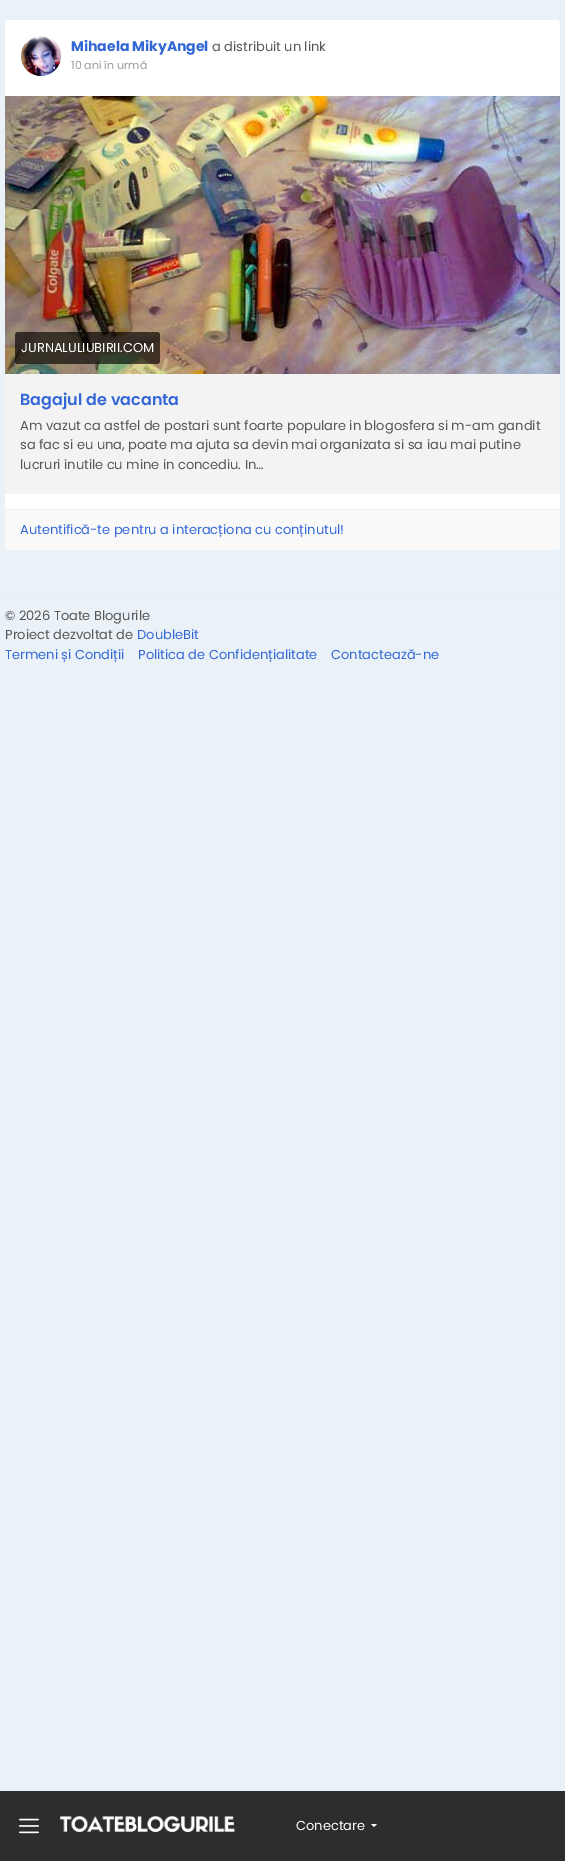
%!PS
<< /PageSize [565 1861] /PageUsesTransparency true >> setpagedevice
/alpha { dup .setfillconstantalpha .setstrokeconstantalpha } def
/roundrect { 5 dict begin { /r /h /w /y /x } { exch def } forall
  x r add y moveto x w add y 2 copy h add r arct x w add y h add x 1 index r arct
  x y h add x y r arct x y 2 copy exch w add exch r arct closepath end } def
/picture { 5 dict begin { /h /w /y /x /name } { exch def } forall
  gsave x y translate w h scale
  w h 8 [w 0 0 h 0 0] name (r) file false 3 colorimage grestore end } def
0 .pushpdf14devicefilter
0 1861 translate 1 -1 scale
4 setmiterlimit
0.918 0.945 0.969 setrgbcolor
0 0 565 1861 rectfill
1 setgray
5 20 555 530 4 roundrect fill
0.933 setgray
newpath 41 56 20 0 360 arc closepath fill
(img1.rgb) 21 36 40 40 picture
/Poppins-Bold [14 0 0 -14 0 0] selectfont
0.2 0.404 0.839 setrgbcolor
71 51 moveto (Mihaela MikyAngel) show
/Poppins-Regular [13 0 0 -13 0 0] selectfont
0.333 setgray
212 51 moveto (a distribuit un link) show
/Poppins-Regular [11 0 0 -11 0 0] selectfont
0.6 setgray
71 69 moveto (10 ani în urmă) show
0.953 setgray
5 374 555 120 rectfill
(img2.rgb) 5 96 555 278 picture
0.65 alpha
0 setgray
15 332 145 32 3 roundrect fill
/Poppins-Regular [13 0 0 -13 0 0] selectfont
1 alpha
1 setgray
21 352 moveto (JURNALULIUBIRII.COM) show
/Poppins-SemiBold [16 0 0 -16 0 0] selectfont
0.2 0.404 0.839 setrgbcolor
20 405 moveto (Bagajul de vacanta) show
/Poppins-Regular [13 0 0 -13 0 0] selectfont
0.333 setgray
20 430 moveto (Am vazut ca astfel de postari sunt foarte populare in blogosfera si m-am gandit) show
20 449 moveto (sa fac si eu una, poate ma ajuta sa devin mai organizata si sa iau mai putine) show
20 469 moveto (lucruri inutile cu mine in concediu. In…) show
0.976 setgray
newpath 5 509 moveto 560 509 lineto 560 546 lineto 560 548 558 550 556 550 curveto 9 550 lineto 7 550 5 548 5 546 curveto closepath fill
0.933 setgray
5 509 555 1 rectfill
0.2 0.404 0.839 setrgbcolor
20 534 moveto (Autentifică-te pentru a interacționa cu conținutul!) show
0.902 0.925 0.961 setrgbcolor
0 595 565 1 rectfill
0.333 setgray
5 620 moveto (© 2026 Toate Blogurile) show
5 639 moveto (Proiect dezvoltat de) show
0.2 0.404 0.839 setrgbcolor
137 639 moveto (DoubleBit) show
5 659 moveto (Termeni și Condiții) show
138 659 moveto (Politica de Confidențialitate) show
331 659 moveto (Contactează-ne) show
0.173 0.176 0.18 setrgbcolor
0 1791 565 70 rectfill
(img3.rgb) 19 1818 20 16 picture
(img4.rgb) 60 1816 175 16 picture
1 setgray
296 1830 moveto (Conectare) show
newpath 371 1824 moveto 377 1824 lineto 374 1827 lineto closepath fill
.poppdf14devicefilter showpage
